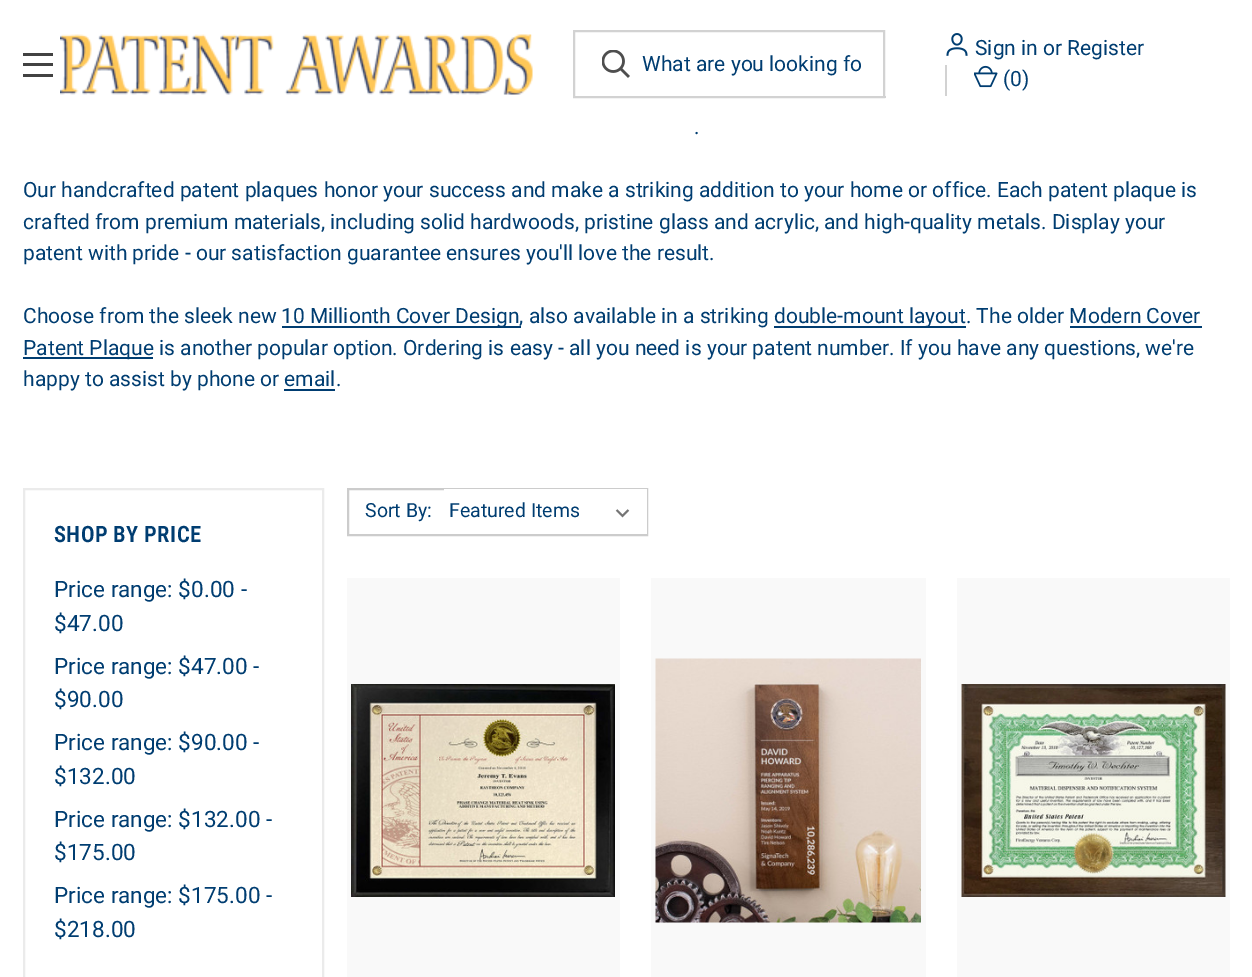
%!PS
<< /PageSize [1252 977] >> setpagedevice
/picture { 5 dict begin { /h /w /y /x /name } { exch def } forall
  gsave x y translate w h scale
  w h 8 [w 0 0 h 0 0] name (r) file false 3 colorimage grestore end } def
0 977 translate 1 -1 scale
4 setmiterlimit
1 setgray
0 0 1252 977 rectfill
0.259 setgray
23 63 30 3 rectfill
23 53 30 3 rectfill
23 74 30 3 rectfill
(img1.rgb) 60 34 473 61 picture
0.824 setgray
2 setlinewidth
574 31 310 66 rectstroke
(img2.rgb) 602 50 28 28 picture
/Roboto-Regular [21 0 0 -21 0 0] selectfont
0 0.239 0.443 setrgbcolor
642 71 moveto (What are you looking fo) show
0.824 setgray
884 96 2 2 rectfill
(img3.rgb) 946 33 22 23 picture
0 0.239 0.443 setrgbcolor
975 55 moveto (Sign in or Register) show
0.824 setgray
945 65 2 31 rectfill
(img4.rgb) 974 65 24 23 picture
0 0.239 0.443 setrgbcolor
1003 86 moveto (\(0\)) show
694 134 moveto (.) show
23 197 moveto (Our handcrafted patent plaques honor your success and make a striking addition to your home or office. Each patent plaque is) show
23 229 moveto (crafted from premium materials, including solid hardwoods, pristine glass and acrylic, and high-quality metals. Display your) show
23 260 moveto (patent with pride - our satisfaction guarantee ensures you'll love the result.) show
23 323 moveto (Choose from the sleek new) show
282 326 239 2 rectfill
281 323 moveto (10 Millionth Cover Design, also available in a striking) show
774 326 192 2 rectfill
774 323 moveto (double-mount layout. The older Modern Cover) show
23 357 130 2 rectfill
23 355 moveto (Patent Plaque is another popular option. Ordering is easy - all you need is your patent number. If you have any questions, we're) show
1070 326 132 2 rectfill
23 386 moveto (happy to assist by phone or email.) show
284 389 51 2 rectfill
0.8 setgray
348 489 299 46 rectstroke
/Roboto-Regular [19.5 0 0 -19.5 0 0] selectfont
0 0.239 0.443 setrgbcolor
365 517 moveto (Sort By:) show
1 setgray
444 489 203 45 rectfill
(img5.rgb) 615 509 15 9 picture
0 0.239 0.443 setrgbcolor
449 517 moveto (Featured Items) show
0.976 setgray
347 578 273 399 rectfill
(img6.rgb) 351 684 264 213 picture
651 578 275 399 rectfill
(img7.rgb) 655 658 266 265 picture
957 578 273 399 rectfill
(img8.rgb) 961 684 265 213 picture
0.922 setgray
24 489 299 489 rectstroke
/RobotoCondensed-SemiBold [22.5 0 0 -22.5 0 0] selectfont
0 0.239 0.443 setrgbcolor
54 542 moveto 0.4 0 (SHOP BY PRICE) ashow
/Roboto-Regular [22.5 0 0 -22.5 0 0] selectfont
54 597 moveto (Price range: $0.00 -) show
54 631 moveto ($47.00) show
54 674 moveto (Price range: $47.00 -) show
54 707 moveto ($90.00) show
54 750 moveto (Price range: $90.00 -) show
54 784 moveto ($132.00) show
54 827 moveto (Price range: $132.00 -) show
54 860 moveto ($175.00) show
54 903 moveto (Price range: $175.00 -) show
54 937 moveto ($218.00) show
showpage
